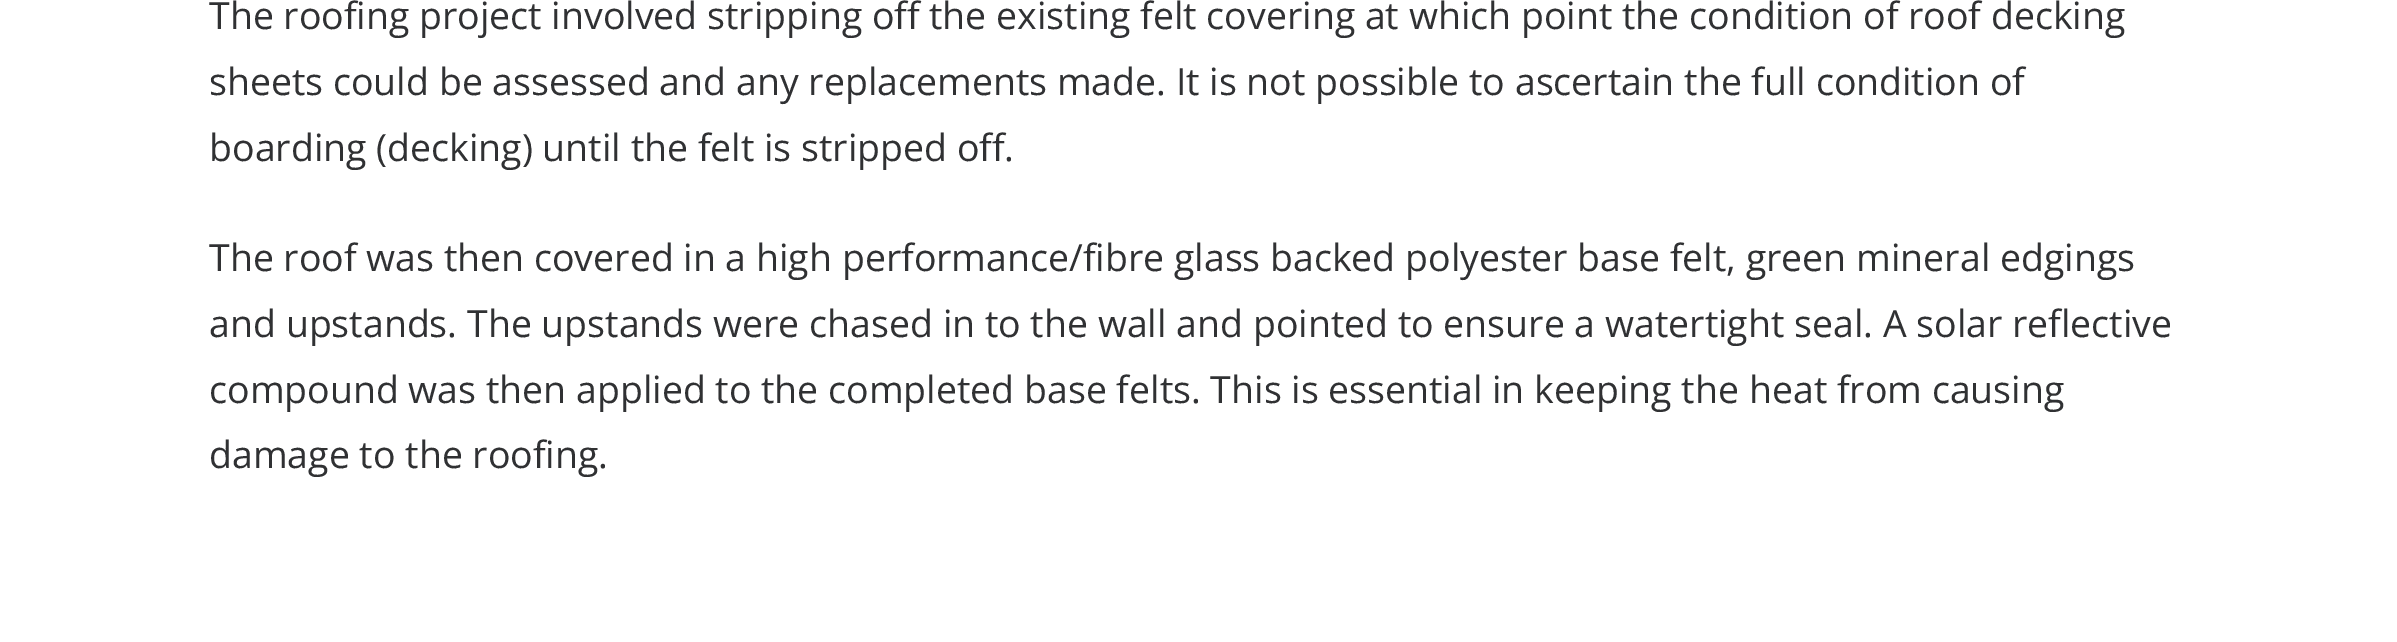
%!PS
<< /PageSize [2397 642] >> setpagedevice
0 642 translate 1 -1 scale
4 setmiterlimit
1 setgray
0 0 2397 642 rectfill
/OpenSans-Regular [37.5 0 0 -37.5 0 0] selectfont
0.188 0.192 0.2 setrgbcolor
209 29 moveto (The roofing project involved stripping off the existing felt covering at which point the condition of roof decking) show
209 95 moveto (sheets could be assessed and any replacements made. It is not possible to ascertain the full condition of) show
209 161 moveto (boarding \(decking\) until the felt is stripped off.) show
209 271 moveto (The roof was then covered in a high performance/fibre glass backed polyester base felt, green mineral edgings) show
209 337 moveto (and upstands. The upstands were chased in to the wall and pointed to ensure a watertight seal. A solar reflective) show
209 403 moveto (compound was then applied to the completed base felts. This is essential in keeping the heat from causing) show
209 468 moveto (damage to the roofing.) show
showpage
